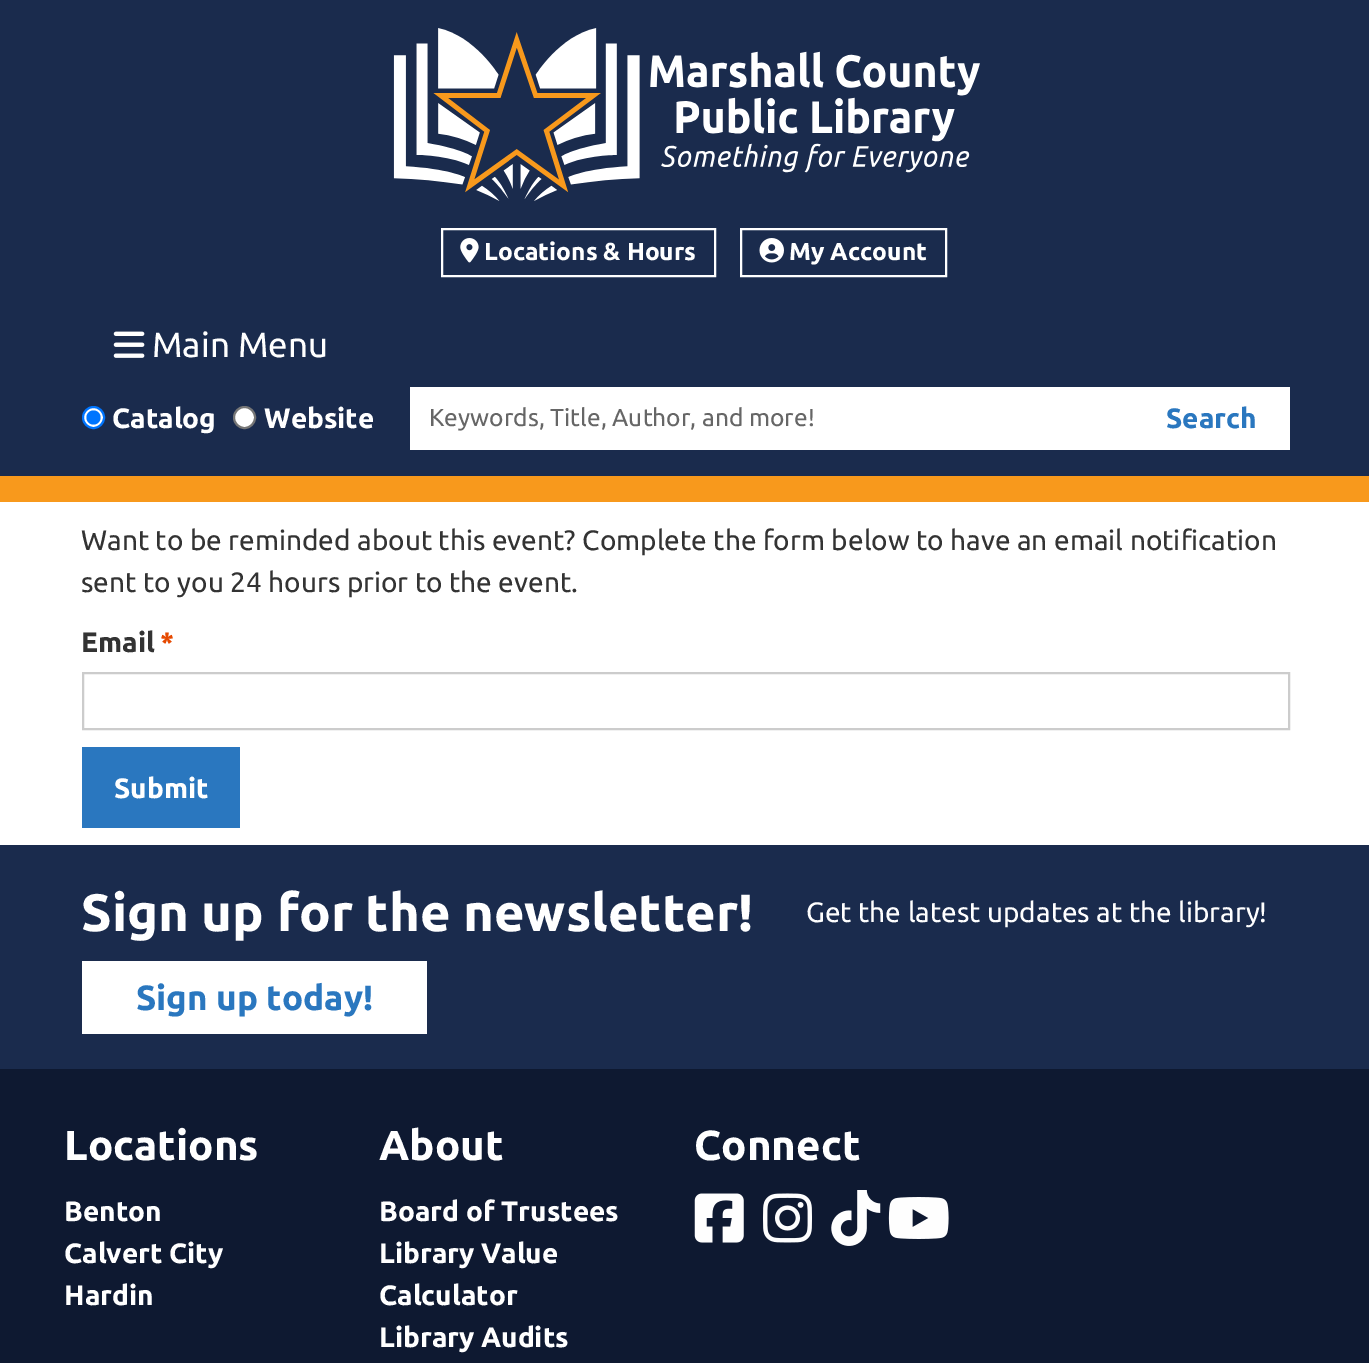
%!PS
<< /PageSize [1369 1363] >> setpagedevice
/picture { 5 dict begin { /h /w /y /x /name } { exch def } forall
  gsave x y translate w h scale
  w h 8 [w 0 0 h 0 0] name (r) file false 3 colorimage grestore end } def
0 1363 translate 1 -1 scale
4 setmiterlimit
1 setgray
0 0 1369 1363 rectfill
0.102 0.169 0.302 setrgbcolor
0 0 1369 476 rectfill
0.973 0.6 0.11 setrgbcolor
0 476 1369 26 rectfill
(img1.rgb) 393 28 587 173 picture
1 setgray
2 setlinewidth
442 229 273 47 rectstroke
(img2.rgb) 460 238 19 25 picture
/Ubuntu-Bold [24.5 0 0 -24.5 0 0] selectfont
484 260 moveto (Locations & Hours) show
741 229 205 47 rectstroke
(img3.rgb) 759 238 25 25 picture
789 260 moveto (My Account) show
(img4.rgb) 113 331 32 27 picture
/Ubuntu-Regular [35 0 0 -35 0 0] selectfont
152 357 moveto (Main Menu) show
newpath 93.5 417.5 10.5 0 360 arc closepath gsave fill grestore
0 0.459 1 setrgbcolor
stroke
newpath 93.5 417.5 7 0 360 arc closepath fill
/Ubuntu-Bold [28 0 0 -28 0 0] selectfont
1 setgray
112 428 moveto (Catalog) show
newpath 244.5 417.5 10.5 0 360 arc closepath gsave fill grestore
0.463 setgray
stroke
1 setgray
264 428 moveto (Website) show
410 387 880 63 rectfill
/Ubuntu-Regular [24.5 0 0 -24.5 0 0] selectfont
0.4 setgray
429 426 moveto (Keywords, Title, Author, and more!) show
/Ubuntu-Bold [28 0 0 -28 0 0] selectfont
0.165 0.467 0.749 setrgbcolor
1166 428 moveto (Search) show
/Ubuntu-Regular [28 0 0 -28 0 0] selectfont
0.2 setgray
81 550 moveto (Want to be reminded about this event? Complete the form below to have an email notification) show
81 592 moveto (sent to you 24 hours prior to the event.) show
/Ubuntu-Bold [28 0 0 -28 0 0] selectfont
81 652 moveto (Email) show
0.902 0.286 0 setrgbcolor
160 652 moveto (*) show
0.8 setgray
83 673 1206 56 rectstroke
0.165 0.467 0.749 setrgbcolor
82 747 158 81 rectfill
1 setgray
114 798 moveto (Submit) show
0.102 0.169 0.302 setrgbcolor
0 845 1369 224 rectfill
/Ubuntu-Bold [52.5 0 0 -52.5 0 0] selectfont
1 setgray
81 931 moveto (Sign up for the newsletter!) show
/Ubuntu-Regular [28 0 0 -28 0 0] selectfont
806 922 moveto (Get the latest updates at the library!) show
82 961 345 73 rectfill
/Ubuntu-Bold [35 0 0 -35 0 0] selectfont
0.165 0.467 0.749 setrgbcolor
136 1010 moveto (Sign up today!) show
0.055 0.098 0.192 setrgbcolor
0 1069 1369 294 rectfill
/Ubuntu-Bold [42 0 0 -42 0 0] selectfont
1 setgray
64 1160 moveto (Locations) show
/Ubuntu-Bold [28 0 0 -28 0 0] selectfont
64 1221 moveto (Benton) show
64 1263 moveto (Calvert City) show
64 1305 moveto (Hardin) show
/Ubuntu-Bold [42 0 0 -42 0 0] selectfont
379 1160 moveto (About) show
/Ubuntu-Bold [28 0 0 -28 0 0] selectfont
379 1221 moveto (Board of Trustees) show
379 1263 moveto (Library Value) show
379 1305 moveto (Calculator) show
379 1347 moveto (Library Audits) show
/Ubuntu-Bold [42 0 0 -42 0 0] selectfont
694 1160 moveto (Connect) show
(img5.rgb) 694 1193 50 50 picture
(img6.rgb) 763 1193 49 50 picture
(img7.rgb) 831 1190 50 56 picture
(img8.rgb) 888 1197 61 42 picture
showpage
